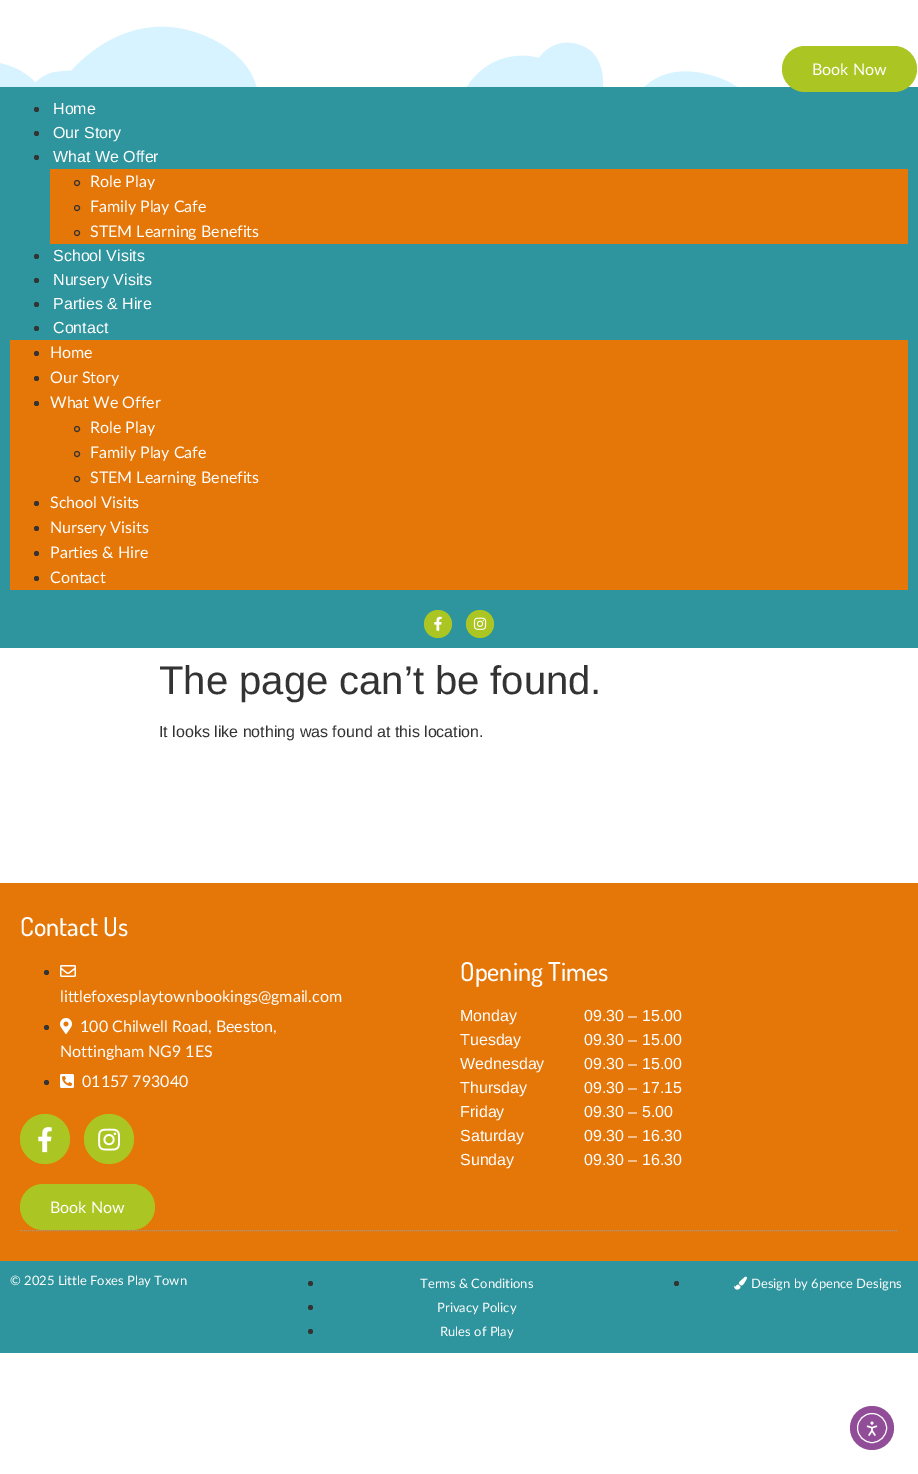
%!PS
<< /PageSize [918 1474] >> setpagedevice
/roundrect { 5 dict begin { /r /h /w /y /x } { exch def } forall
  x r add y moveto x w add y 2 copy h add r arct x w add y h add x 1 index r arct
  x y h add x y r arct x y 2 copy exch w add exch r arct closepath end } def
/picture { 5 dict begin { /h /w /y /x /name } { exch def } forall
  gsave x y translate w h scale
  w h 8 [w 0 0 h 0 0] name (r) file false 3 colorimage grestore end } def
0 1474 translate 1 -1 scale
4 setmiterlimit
1 setgray
0 0 918 1474 rectfill
0.843 0.953 1 setrgbcolor
0 26 738 61 rectfill
(img1.rgb) 0 25 918 62 picture
0.18 0.58 0.616 setrgbcolor
0 87 918 561 rectfill
0.671 0.776 0.133 setrgbcolor
782 46 135 46 23 roundrect fill
/Lato-Regular [16 0 0 -16 0 0] selectfont
1 setgray
812 75 moveto (Book Now) show
0.2 setgray
newpath 36.5 109.5 2.5 0 360 arc closepath fill
/LiberationSans-Regular [16 0 0 -16 0 0] selectfont
1 setgray
53 114 moveto (Home) show
0.2 setgray
newpath 36.5 133.5 2.5 0 360 arc closepath fill
1 setgray
53 138 moveto (Our Story) show
0.2 setgray
newpath 36.5 157.5 2.5 0 360 arc closepath fill
1 setgray
53 162 moveto (What We Offer) show
0.898 0.463 0.031 setrgbcolor
50 169 858 75 rectfill
0.2 setgray
newpath 77 183 2.5 0 360 arc closepath stroke
/Lato-Regular [16 0 0 -16 0 0] selectfont
1 setgray
90 187 moveto (Role Play) show
0.2 setgray
newpath 77 208 2.5 0 360 arc closepath stroke
1 setgray
90 212 moveto (Family Play Cafe) show
0.2 setgray
newpath 77 233 2.5 0 360 arc closepath stroke
1 setgray
90 237 moveto (STEM Learning Benefits) show
0.2 setgray
newpath 36.5 256.5 2.5 0 360 arc closepath fill
/LiberationSans-Regular [16 0 0 -16 0 0] selectfont
1 setgray
53 261 moveto (School Visits) show
0.2 setgray
newpath 36.5 280.5 2.5 0 360 arc closepath fill
1 setgray
53 285 moveto (Nursery Visits) show
0.2 setgray
newpath 36.5 304.5 2.5 0 360 arc closepath fill
1 setgray
53 309 moveto (Parties & Hire) show
0.2 setgray
newpath 36.5 328.5 2.5 0 360 arc closepath fill
1 setgray
53 333 moveto (Contact) show
0.898 0.463 0.031 setrgbcolor
10 340 898 250 rectfill
0.2 setgray
newpath 36.5 353.5 2.5 0 360 arc closepath fill
/Lato-Regular [16 0 0 -16 0 0] selectfont
1 setgray
50 358 moveto (Home) show
0.2 setgray
newpath 36.5 378.5 2.5 0 360 arc closepath fill
1 setgray
50 383 moveto (Our Story) show
0.2 setgray
newpath 36.5 403.5 2.5 0 360 arc closepath fill
1 setgray
50 408 moveto (What We Offer) show
0.2 setgray
newpath 77 429 2.5 0 360 arc closepath stroke
1 setgray
90 433 moveto (Role Play) show
0.2 setgray
newpath 77 454 2.5 0 360 arc closepath stroke
1 setgray
90 458 moveto (Family Play Cafe) show
0.2 setgray
newpath 77 479 2.5 0 360 arc closepath stroke
1 setgray
90 483 moveto (STEM Learning Benefits) show
0.2 setgray
newpath 36.5 503.5 2.5 0 360 arc closepath fill
1 setgray
50 508 moveto (School Visits) show
0.2 setgray
newpath 36.5 528.5 2.5 0 360 arc closepath fill
1 setgray
50 533 moveto (Nursery Visits) show
0.2 setgray
newpath 36.5 553.5 2.5 0 360 arc closepath fill
1 setgray
50 558 moveto (Parties & Hire) show
0.2 setgray
newpath 36.5 578.5 2.5 0 360 arc closepath fill
1 setgray
50 583 moveto (Contact) show
0.671 0.776 0.133 setrgbcolor
newpath 438 624 14 0 360 arc closepath fill
(img2.rgb) 434 616 8 15 picture
newpath 480 624 14 0 360 arc closepath fill
(img3.rgb) 473 617 14 13 picture
/LiberationSans-Regular [40 0 0 -40 0 0] selectfont
0.2 setgray
159 694 moveto (The page can’t be found.) show
/LiberationSans-Regular [16 0 0 -16 0 0] selectfont
159 737 moveto (It looks like nothing was found at this location.) show
0.898 0.463 0.031 setrgbcolor
0 883 918 378 rectfill
0.608 setgray
[1 1] 0 setdash
newpath 20 1230.5 moveto 898 1230.5 lineto stroke
/Dosis-Medium [26 0 0 -26 0 0] selectfont
1 setgray
20 936 moveto (Contact Us) show
0.2 setgray
newpath 46.5 972.5 2.5 0 360 arc closepath fill
(img4.rgb) 60 965 16 12 picture
/Lato-Regular [16 0 0 -16 0 0] selectfont
1 setgray
60 1002 moveto (littlefoxesplaytownbookings@gmail.com) show
0.2 setgray
newpath 46.5 1027.5 2.5 0 360 arc closepath fill
(img5.rgb) 60 1018 12 16 picture
1 setgray
80 1032 moveto (100 Chilwell Road, Beeston,) show
60 1057 moveto (Nottingham NG9 1ES) show
0.2 setgray
newpath 46.5 1082.5 2.5 0 360 arc closepath fill
(img6.rgb) 60 1074 14 14 picture
1 setgray
82 1087 moveto (01157 793040) show
0.671 0.776 0.133 setrgbcolor
newpath 45 1139 25 0 360 arc closepath fill
(img7.rgb) 38 1127 14 26 picture
newpath 109 1139 25 0 360 arc closepath fill
(img8.rgb) 98 1128 22 23 picture
20 1184 135 46 23 roundrect fill
1 setgray
50 1213 moveto (Book Now) show
/Dosis-Medium [26 0 0 -26 0 0] selectfont
460 981 moveto (Opening Times) show
/LiberationSans-Regular [16 0 0 -16 0 0] selectfont
460 1021 moveto (Monday) show
460 1045 moveto (Tuesday) show
460 1069 moveto (Wednesday) show
460 1093 moveto (Thursday) show
460 1117 moveto (Friday) show
460 1141 moveto (Saturday) show
460 1165 moveto (Sunday) show
584 1021 moveto (09.30 – 15.00) show
584 1045 moveto (09.30 – 15.00) show
584 1069 moveto (09.30 – 15.00) show
584 1093 moveto (09.30 – 17.15) show
584 1117 moveto (09.30 – 5.00) show
584 1141 moveto (09.30 – 16.30) show
584 1165 moveto (09.30 – 16.30) show
0.18 0.58 0.616 setrgbcolor
0 1261 918 92 rectfill
/Lato-Regular [13 0 0 -13 0 0] selectfont
1 setgray
10 1285 moveto (© 2025 Little Foxes Play Town) show
0.2 setgray
newpath 310.5 1283.5 2.5 0 360 arc closepath fill
1 setgray
420 1288 moveto (Terms & Conditions) show
0.2 setgray
newpath 310.5 1307.5 2.5 0 360 arc closepath fill
1 setgray
437 1312 moveto (Privacy Policy) show
0.2 setgray
newpath 310.5 1331.5 2.5 0 360 arc closepath fill
1 setgray
440 1336 moveto (Rules of Play) show
0.2 setgray
newpath 676.5 1283.5 2.5 0 360 arc closepath fill
(img9.rgb) 734 1276 13 14 picture
1 setgray
751 1288 moveto (Design by 6pence Designs) show
0.569 0.302 0.592 setrgbcolor
newpath 872 1428 22 0 360 arc closepath fill
1 setgray
[] 0 setdash
newpath 872 1428 14.5 0 360 arc closepath stroke
(img10.rgb) 866 1421 12 15 picture
showpage
